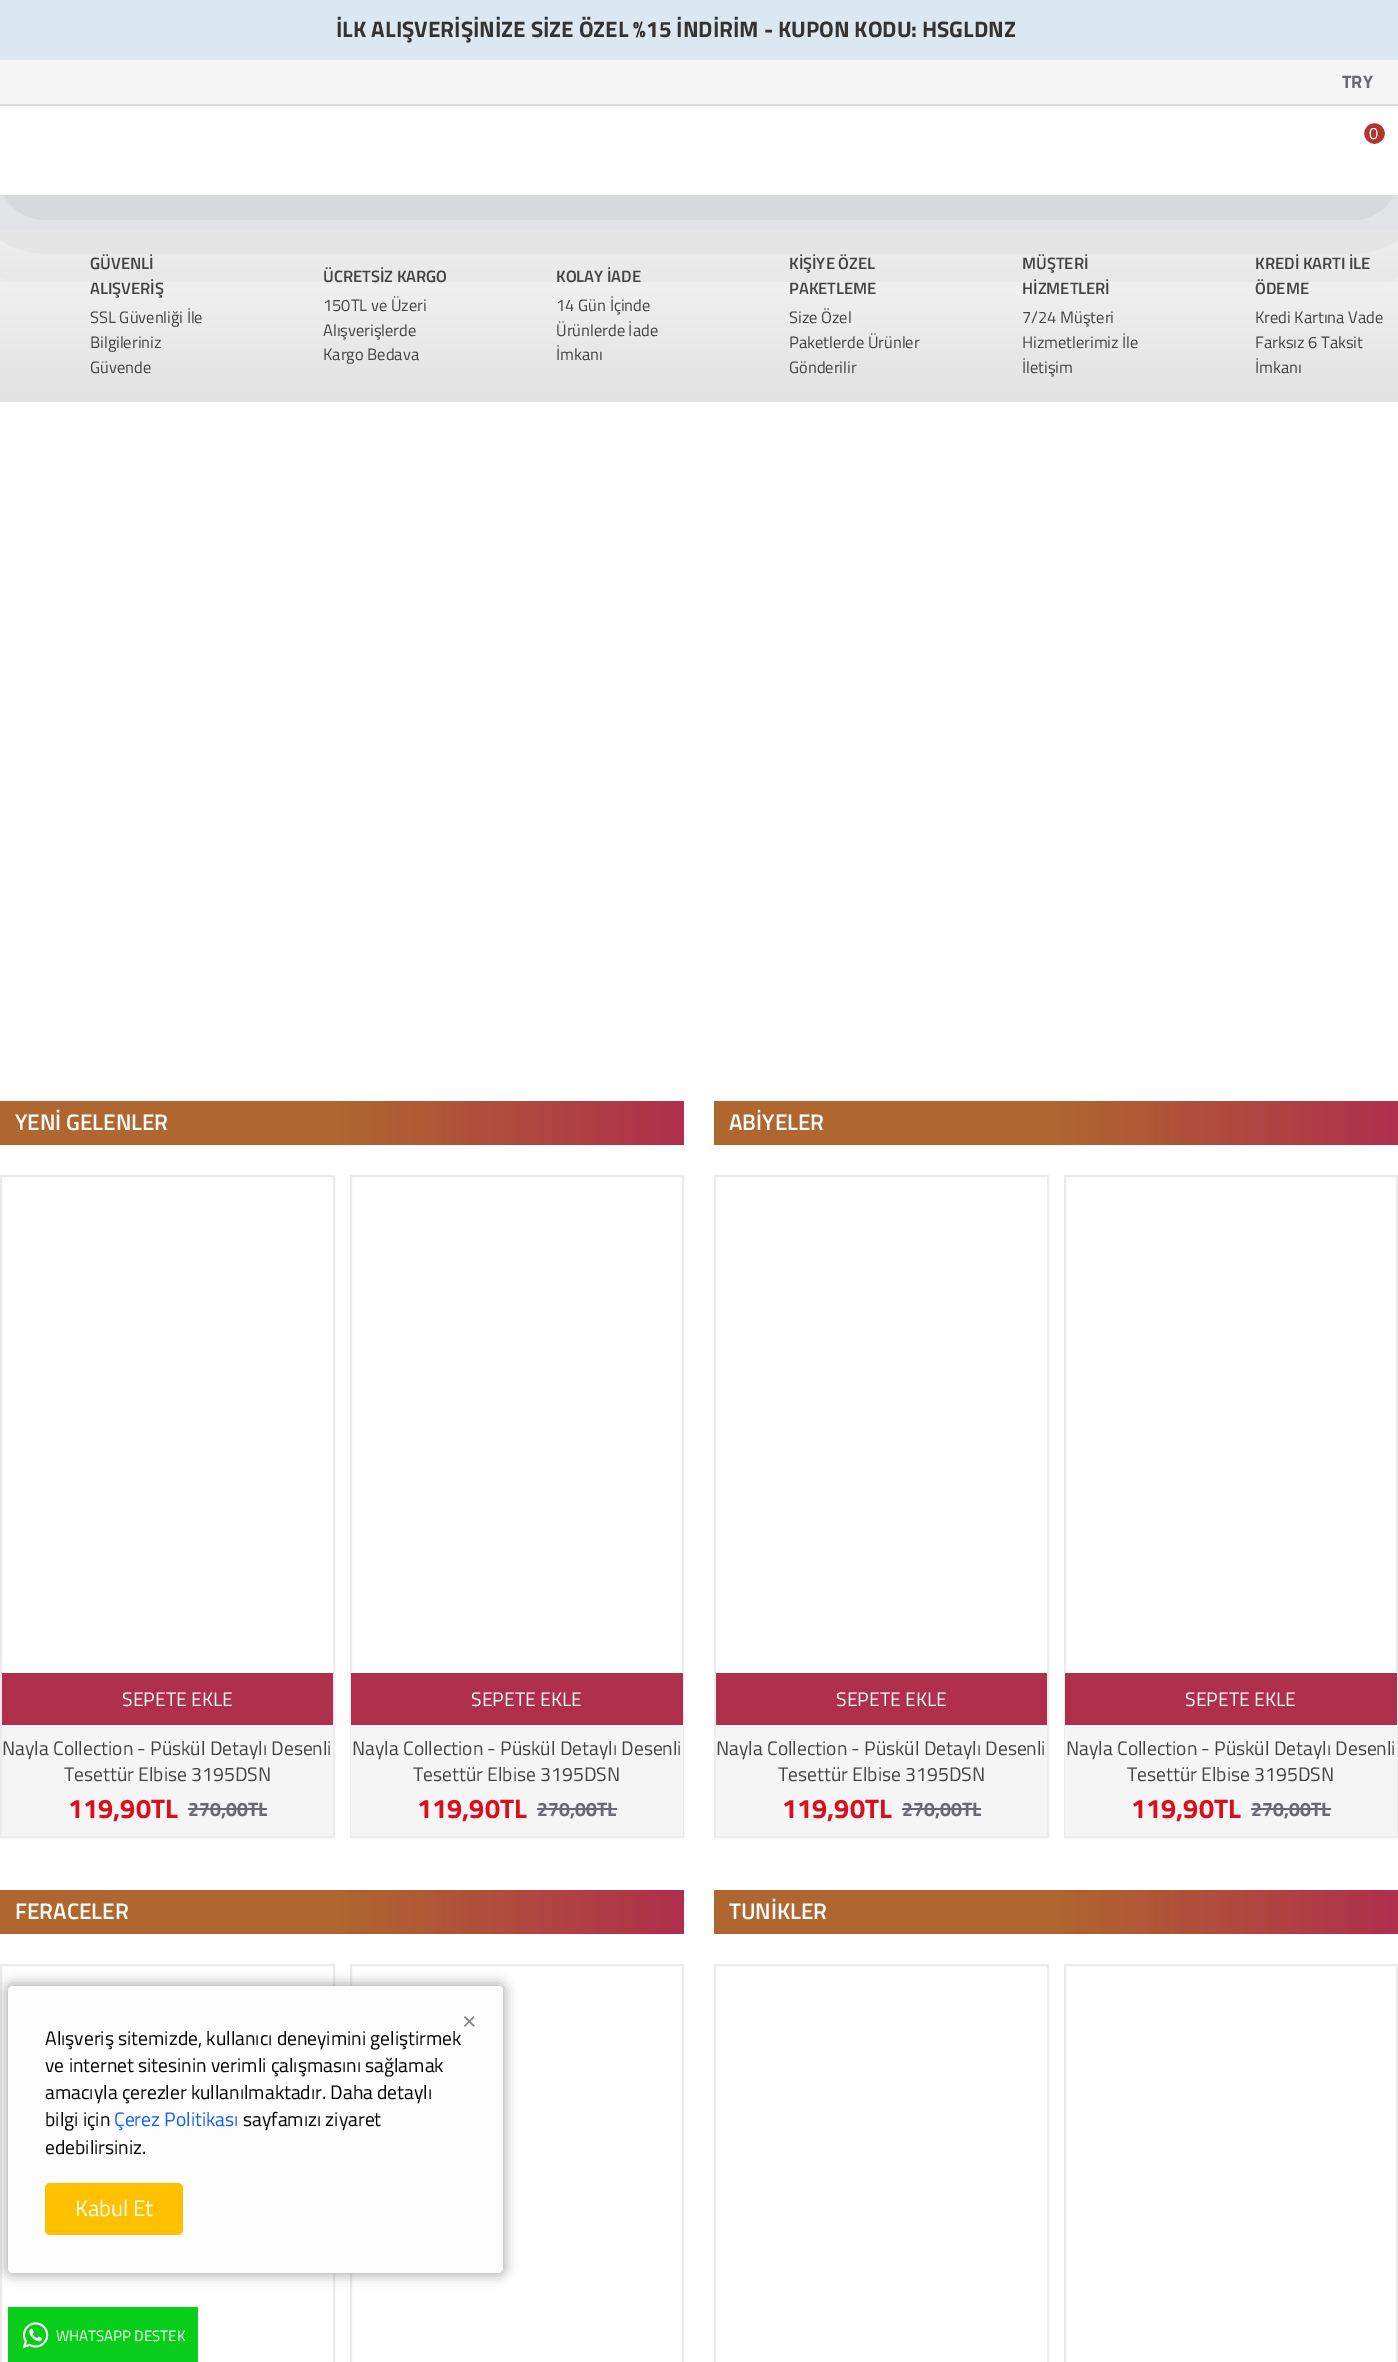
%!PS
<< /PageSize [1398 2362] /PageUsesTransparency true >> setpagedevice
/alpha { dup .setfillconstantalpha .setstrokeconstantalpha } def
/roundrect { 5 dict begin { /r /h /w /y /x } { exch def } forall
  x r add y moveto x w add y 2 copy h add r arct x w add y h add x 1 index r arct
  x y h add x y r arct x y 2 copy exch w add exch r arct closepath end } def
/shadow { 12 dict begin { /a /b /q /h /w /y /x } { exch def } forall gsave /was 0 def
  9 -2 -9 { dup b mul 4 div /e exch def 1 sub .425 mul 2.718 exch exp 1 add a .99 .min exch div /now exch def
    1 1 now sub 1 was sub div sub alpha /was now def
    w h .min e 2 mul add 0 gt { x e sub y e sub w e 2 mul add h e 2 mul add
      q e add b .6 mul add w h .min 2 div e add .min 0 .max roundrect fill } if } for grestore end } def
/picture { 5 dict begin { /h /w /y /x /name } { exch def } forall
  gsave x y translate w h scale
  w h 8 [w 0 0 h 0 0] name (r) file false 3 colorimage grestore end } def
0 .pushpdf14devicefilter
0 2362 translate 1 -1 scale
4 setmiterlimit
1 setgray
0 0 1398 2362 rectfill
0.859 0.91 0.949 setrgbcolor
0 0 1398 60 rectfill
/TitilliumWeb-Bold [22.5 0 0 -22.5 0 0] selectfont
0.2 setgray
336 37 moveto (İLK ALIŞVERİŞİNİZE SİZE ÖZEL %15 İNDİRİM - KUPON KODU: HSGLDNZ) show
0.941 0.949 0.961 setrgbcolor
0 195 1398 35 rectfill
gsave newpath 0 230 moveto 1398 230 lineto 1398 402 lineto 0 402 lineto closepath clip newpath
<< /ShadingType 2 /ColorSpace /DeviceRGB /Coords [699 402 699 230] /Extend [true true] /Function << /FunctionType 3 /Domain [0 1] /Functions [<< /FunctionType 2 /Domain [0 1] /C0 [0.886 0.886 0.886] /C1 [0.957 0.957 0.957] /N 1 >> << /FunctionType 2 /Domain [0 1] /C0 [0.957 0.957 0.957] /C1 [0.957 0.957 0.957] /N 1 >>] /Bounds [0.9] /Encode [0 1 0 1] >> >> shfill grestore
gsave
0 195 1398 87 rectclip
0 setgray
15 143 1368 60 0 67.5 0.2 shadow
grestore
0.961 setgray
0 60 1398 44 rectfill
0.867 setgray
0 104 1398 2 rectfill
/TitilliumWeb-Bold [18 0 0 -18 0 0] selectfont
0.412 0.412 0.451 setrgbcolor
1342 88 moveto (TRY) show
0.69 0.212 0.184 setrgbcolor
newpath 1374.5 133.5 12 0 360 arc closepath gsave fill grestore
1 setgray
3 setlinewidth
stroke
/TitilliumWeb-Regular [16.5 0 0 -16.5 0 0] selectfont
1369 139 moveto (0) show
/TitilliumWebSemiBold-SemiBold [16.5 0 0 -16.5 0 0] selectfont
0.267 setgray
90 269 moveto (GÜVENLİ) show
90 294 moveto (ALIŞVERİŞ) show
/TitilliumWeb-Regular [16.5 0 0 -16.5 0 0] selectfont
90 323 moveto (SSL Güvenliği İle) show
90 348 moveto (Bilgileriniz) show
90 373 moveto (Güvende) show
/TitilliumWebSemiBold-SemiBold [16.5 0 0 -16.5 0 0] selectfont
323 282 moveto (ÜCRETSİZ KARGO) show
/TitilliumWeb-Regular [16.5 0 0 -16.5 0 0] selectfont
323 311 moveto (150TL ve Üzeri) show
323 336 moveto (Alışverişlerde) show
323 360 moveto (Kargo Bedava) show
/TitilliumWebSemiBold-SemiBold [16.5 0 0 -16.5 0 0] selectfont
556 282 moveto (KOLAY İADE) show
/TitilliumWeb-Regular [16.5 0 0 -16.5 0 0] selectfont
556 311 moveto (14 Gün İçinde) show
556 336 moveto (Ürünlerde İade) show
556 360 moveto (İmkanı) show
/TitilliumWebSemiBold-SemiBold [16.5 0 0 -16.5 0 0] selectfont
789 269 moveto (KİŞİYE ÖZEL) show
789 294 moveto (PAKETLEME) show
/TitilliumWeb-Regular [16.5 0 0 -16.5 0 0] selectfont
789 323 moveto (Size Özel) show
789 348 moveto (Paketlerde Ürünler) show
789 373 moveto (Gönderilir) show
/TitilliumWebSemiBold-SemiBold [16.5 0 0 -16.5 0 0] selectfont
1022 269 moveto (MÜŞTERİ) show
1022 294 moveto (HİZMETLERİ) show
/TitilliumWeb-Regular [16.5 0 0 -16.5 0 0] selectfont
1022 323 moveto (7/24 Müşteri) show
1022 348 moveto (Hizmetlerimiz İle) show
1022 373 moveto (İletişim) show
/TitilliumWebSemiBold-SemiBold [16.5 0 0 -16.5 0 0] selectfont
1255 269 moveto (KREDİ KARTI İLE) show
1255 294 moveto (ÖDEME) show
/TitilliumWeb-Regular [16.5 0 0 -16.5 0 0] selectfont
1255 323 moveto (Kredi Kartına Vade) show
1255 348 moveto (Farksız 6 Taksit) show
1255 373 moveto (İmkanı) show
gsave newpath 0 1101 moveto 684 1101 lineto 684 1145 lineto 0 1145 lineto closepath clip newpath
<< /ShadingType 2 /ColorSpace /DeviceRGB /Coords [684 1123 0 1123] /Extend [true true] /Function << /FunctionType 3 /Domain [0 1] /Functions [<< /FunctionType 2 /Domain [0 1] /C0 [0.686 0.184 0.302] /C1 [0.686 0.4 0.184] /N 1 >> << /FunctionType 2 /Domain [0 1] /C0 [0.686 0.4 0.184] /C1 [0.686 0.4 0.184] /N 1 >>] /Bounds [0.5] /Encode [0 1 0 1] >> >> shfill grestore
/TitilliumWebSemiBold-SemiBold [22.5 0 0 -22.5 0 0] selectfont
1 setgray
15 1130 moveto (YENİ GELENLER) show
0.922 setgray
2 setlinewidth
1 1176 333 661 rectstroke
0.961 setgray
2 1725 331 111 rectfill
0.686 0.184 0.302 setrgbcolor
2 1673 331 52 rectfill
/TitilliumWeb-Regular [19.5 0 0 -19.5 0 0] selectfont
1 setgray
122 1706 moveto (SEPETE EKLE) show
0.267 setgray
2 1755 moveto (Nayla Collection - Püskül Detaylı Desenli) show
64 1781 moveto (Tesettür Elbise 3195DSN) show
/TitilliumWeb-Bold [27 0 0 -27 0 0] selectfont
0.867 0.055 0.11 setrgbcolor
68 1818 moveto (119,90TL) show
/TitilliumWeb-Bold [19.5 0 0 -19.5 0 0] selectfont
0.412 0.412 0.451 setrgbcolor
188 1816 moveto (270,00TL) show
188 1808 79 2 rectfill
0.922 setgray
351 1176 332 661 rectstroke
0.961 setgray
351 1725 332 111 rectfill
0.686 0.184 0.302 setrgbcolor
351 1673 332 52 rectfill
/TitilliumWeb-Regular [19.5 0 0 -19.5 0 0] selectfont
1 setgray
471 1706 moveto (SEPETE EKLE) show
0.267 setgray
352 1755 moveto (Nayla Collection - Püskül Detaylı Desenli) show
413 1781 moveto (Tesettür Elbise 3195DSN) show
/TitilliumWeb-Bold [27 0 0 -27 0 0] selectfont
0.867 0.055 0.11 setrgbcolor
417 1818 moveto (119,90TL) show
/TitilliumWeb-Bold [19.5 0 0 -19.5 0 0] selectfont
0.412 0.412 0.451 setrgbcolor
537 1816 moveto (270,00TL) show
537 1808 80 2 rectfill
gsave newpath 714 1101 moveto 1398 1101 lineto 1398 1145 lineto 714 1145 lineto closepath clip newpath
<< /ShadingType 2 /ColorSpace /DeviceRGB /Coords [1398 1123 714 1123] /Extend [true true] /Function << /FunctionType 3 /Domain [0 1] /Functions [<< /FunctionType 2 /Domain [0 1] /C0 [0.686 0.184 0.302] /C1 [0.686 0.4 0.184] /N 1 >> << /FunctionType 2 /Domain [0 1] /C0 [0.686 0.4 0.184] /C1 [0.686 0.4 0.184] /N 1 >>] /Bounds [0.5] /Encode [0 1 0 1] >> >> shfill grestore
/TitilliumWebSemiBold-SemiBold [22.5 0 0 -22.5 0 0] selectfont
1 setgray
729 1130 moveto (ABİYELER) show
0.922 setgray
715 1176 333 661 rectstroke
0.961 setgray
716 1725 331 111 rectfill
0.686 0.184 0.302 setrgbcolor
716 1673 331 52 rectfill
/TitilliumWeb-Regular [19.5 0 0 -19.5 0 0] selectfont
1 setgray
836 1706 moveto (SEPETE EKLE) show
0.267 setgray
716 1755 moveto (Nayla Collection - Püskül Detaylı Desenli) show
778 1781 moveto (Tesettür Elbise 3195DSN) show
/TitilliumWeb-Bold [27 0 0 -27 0 0] selectfont
0.867 0.055 0.11 setrgbcolor
782 1818 moveto (119,90TL) show
/TitilliumWeb-Bold [19.5 0 0 -19.5 0 0] selectfont
0.412 0.412 0.451 setrgbcolor
902 1816 moveto (270,00TL) show
902 1808 79 2 rectfill
0.922 setgray
1065 1176 332 661 rectstroke
0.961 setgray
1065 1725 332 111 rectfill
0.686 0.184 0.302 setrgbcolor
1065 1673 332 52 rectfill
/TitilliumWeb-Regular [19.5 0 0 -19.5 0 0] selectfont
1 setgray
1185 1706 moveto (SEPETE EKLE) show
0.267 setgray
1066 1755 moveto (Nayla Collection - Püskül Detaylı Desenli) show
1127 1781 moveto (Tesettür Elbise 3195DSN) show
/TitilliumWeb-Bold [27 0 0 -27 0 0] selectfont
0.867 0.055 0.11 setrgbcolor
1131 1818 moveto (119,90TL) show
/TitilliumWeb-Bold [19.5 0 0 -19.5 0 0] selectfont
0.412 0.412 0.451 setrgbcolor
1251 1816 moveto (270,00TL) show
1251 1808 80 2 rectfill
gsave newpath 0 1890 moveto 684 1890 lineto 684 1934 lineto 0 1934 lineto closepath clip newpath
<< /ShadingType 2 /ColorSpace /DeviceRGB /Coords [684 1912 0 1912] /Extend [true true] /Function << /FunctionType 3 /Domain [0 1] /Functions [<< /FunctionType 2 /Domain [0 1] /C0 [0.686 0.184 0.302] /C1 [0.686 0.4 0.184] /N 1 >> << /FunctionType 2 /Domain [0 1] /C0 [0.686 0.4 0.184] /C1 [0.686 0.4 0.184] /N 1 >>] /Bounds [0.5] /Encode [0 1 0 1] >> >> shfill grestore
/TitilliumWebSemiBold-SemiBold [22.5 0 0 -22.5 0 0] selectfont
1 setgray
15 1919 moveto (FERACELER) show
0.922 setgray
1 1965 333 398 rectstroke
351 1965 332 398 rectstroke
gsave newpath 714 1890 moveto 1398 1890 lineto 1398 1934 lineto 714 1934 lineto closepath clip newpath
<< /ShadingType 2 /ColorSpace /DeviceRGB /Coords [1398 1912 714 1912] /Extend [true true] /Function << /FunctionType 3 /Domain [0 1] /Functions [<< /FunctionType 2 /Domain [0 1] /C0 [0.686 0.184 0.302] /C1 [0.686 0.4 0.184] /N 1 >> << /FunctionType 2 /Domain [0 1] /C0 [0.686 0.4 0.184] /C1 [0.686 0.4 0.184] /N 1 >>] /Bounds [0.5] /Encode [0 1 0 1] >> >> shfill grestore
1 setgray
729 1919 moveto (TUNİKLER) show
0.922 setgray
715 1965 333 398 rectstroke
1065 1965 332 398 rectstroke
0.031 0.808 0.106 setrgbcolor
8 2307 190 55 rectfill
(img1.rgb) 22 2322 27 27 picture
/TitilliumWeb-Regular [15 0 0 -15 0 0] selectfont
1 setgray
56 2341 moveto (WHATSAPP DESTEK) show
0 setgray
5 1983 501 293 8 6 0.28 shadow
0.992 setgray
8 1986 495 287 5 roundrect fill
/TitilliumWeb-Regular [26 0 0 -26 0 0] selectfont
0.498 setgray
462 2028 moveto (×) show
/TitilliumWeb-Regular [19.5 0 0 -19.5 0 0] selectfont
0 setgray
45 2045 moveto (Alışveriş sitemizde, kullanıcı deneyimini geliştirmek) show
45 2072 moveto (ve internet sitesinin verimli çalışmasını sağlamak) show
45 2099 moveto (amacıyla çerezler kullanılmaktadır. Daha detaylı) show
45 2126 moveto (bilgi için) show
0.067 0.361 0.98 setrgbcolor
114 2126 moveto (Çerez Politikası) show
0 setgray
243 2126 moveto (sayfamızı ziyaret) show
45 2154 moveto (edebilirsiniz.) show
1 0.753 0 setrgbcolor
45 2183 138 52 5 roundrect fill
/TitilliumWeb-Regular [22.5 0 0 -22.5 0 0] selectfont
1 setgray
75 2216 moveto (Kabul Et) show
.poppdf14devicefilter showpage
